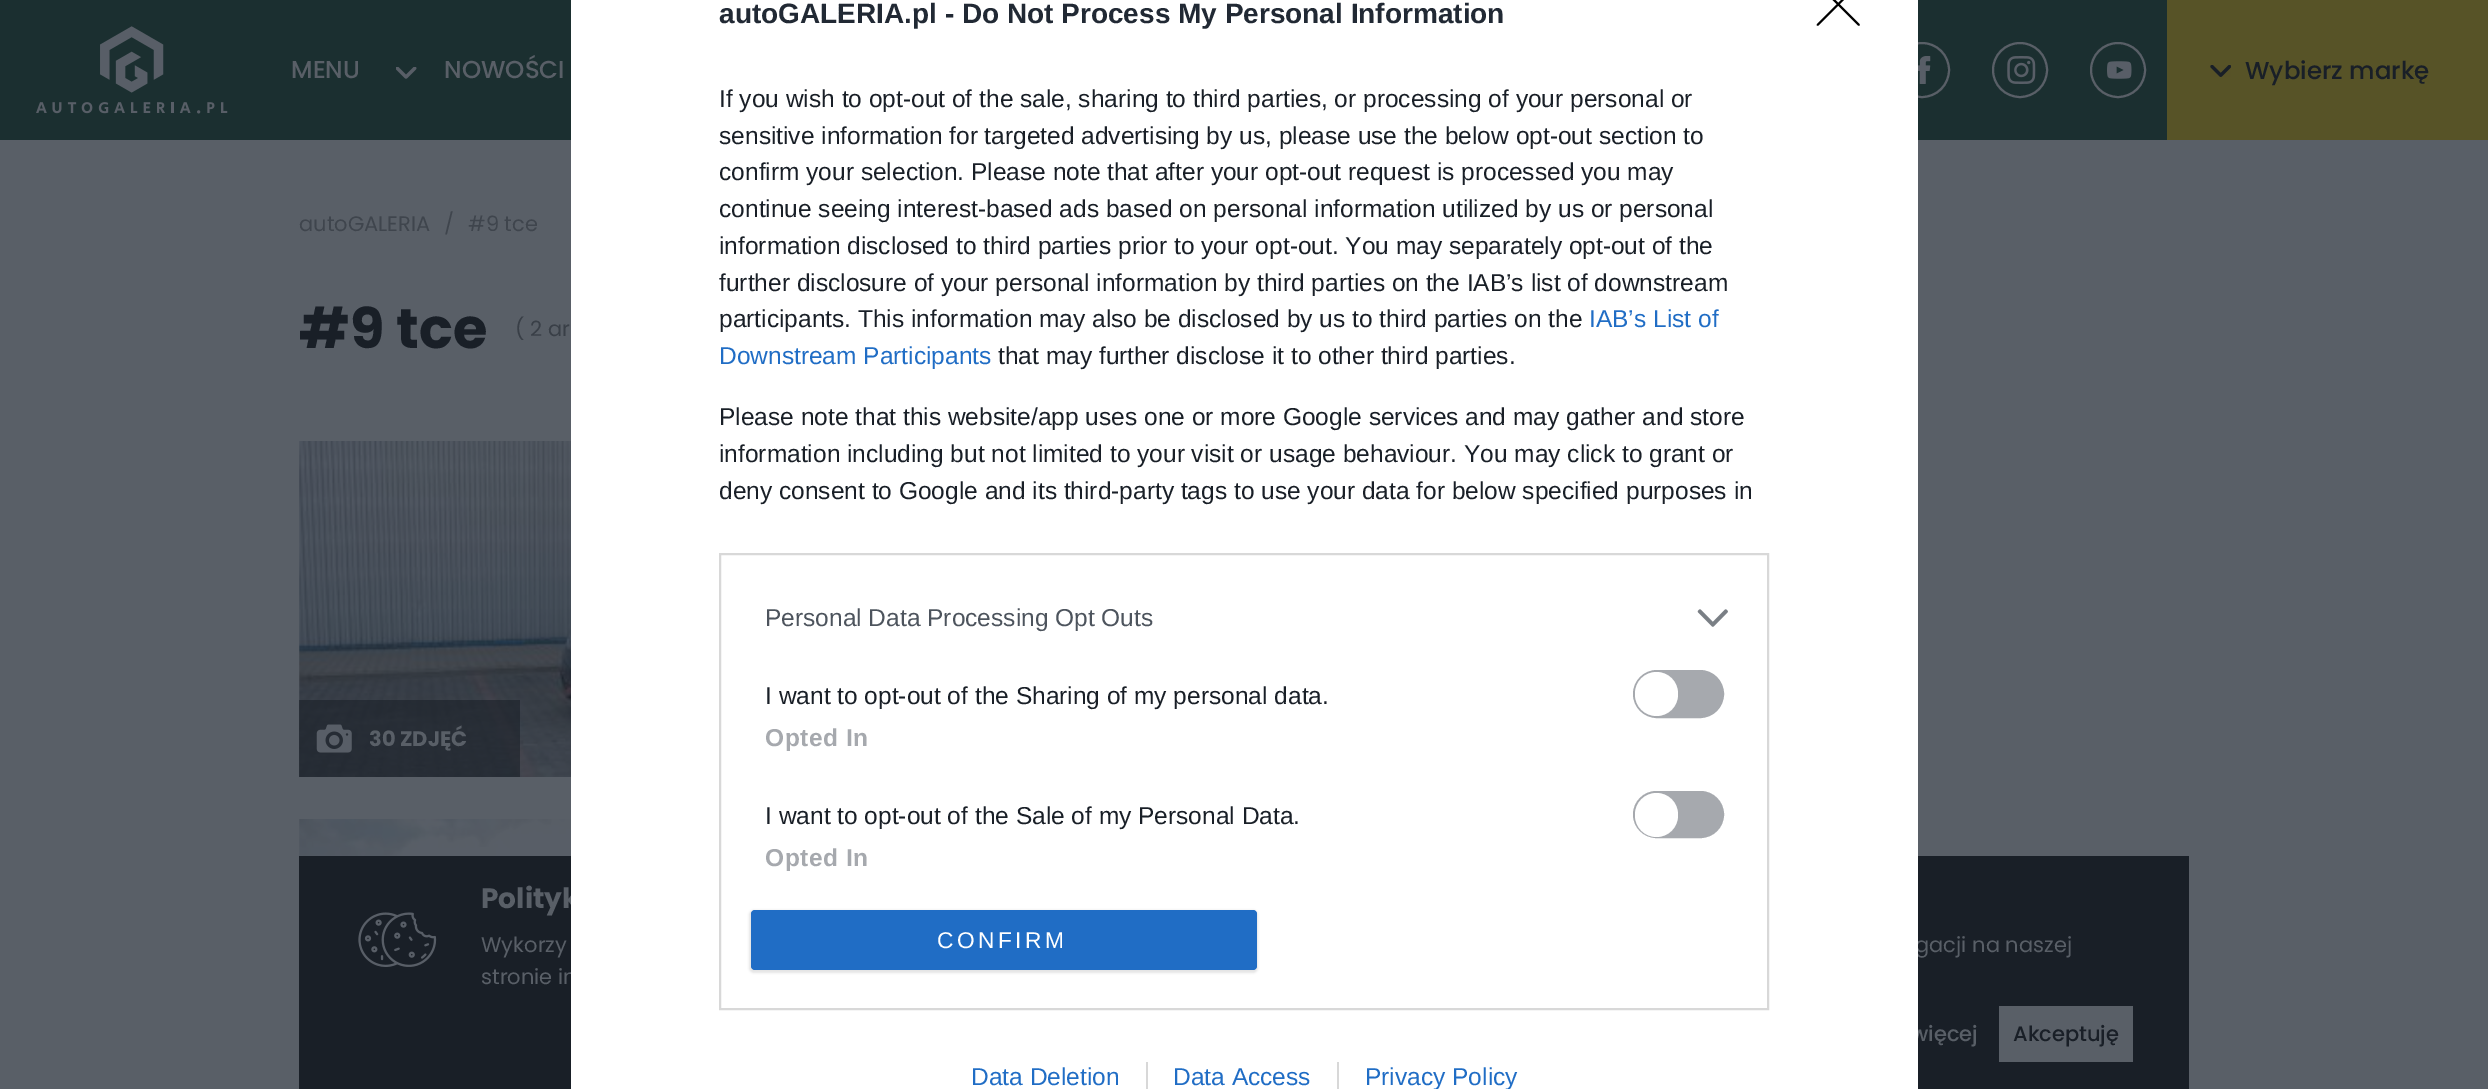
%!PS
<< /PageSize [2488 1089] /PageUsesTransparency true >> setpagedevice
/alpha { dup .setfillconstantalpha .setstrokeconstantalpha } def
/roundrect { 5 dict begin { /r /h /w /y /x } { exch def } forall
  x r add y moveto x w add y 2 copy h add r arct x w add y h add x 1 index r arct
  x y h add x y r arct x y 2 copy exch w add exch r arct closepath end } def
/shadow { 12 dict begin { /a /b /q /h /w /y /x } { exch def } forall gsave /was 0 def
  9 -2 -9 { dup b mul 4 div /e exch def 1 sub .425 mul 2.718 exch exp 1 add a .99 .min exch div /now exch def
    1 1 now sub 1 was sub div sub alpha /was now def
    w h .min e 2 mul add 0 gt { x e sub y e sub w e 2 mul add h e 2 mul add
      q e add b .6 mul add w h .min 2 div e add .min 0 .max roundrect fill } if } for grestore end } def
/picture { 5 dict begin { /h /w /y /x /name } { exch def } forall
  gsave x y translate w h scale
  w h 8 [w 0 0 h 0 0] name (r) file false 3 colorimage grestore end } def
0 .pushpdf14devicefilter
0 1089 translate 1 -1 scale
4 setmiterlimit
0.349 0.373 0.404 setrgbcolor
0 0 2488 1089 rectfill
0.106 0.184 0.188 setrgbcolor
0 0 2167 140 rectfill
0.349 0.373 0.404 setrgbcolor
2 setlinewidth
newpath 1922 70 27 0 360 arc closepath stroke
0.098 0.122 0.153 setrgbcolor
299 856 1890 233 rectfill
/Poppins-Bold [28 0 0 -28 0 0] selectfont
0.349 0.373 0.404 setrgbcolor
481 908 moveto (Polityk) show
/Poppins-Regular [21 0 0 -21 0 0] selectfont
1915 952 moveto (gacji na naszej) show
481 984 moveto (stronie in) show
/Poppins-Medium [21 0 0 -21 0 0] selectfont
1911 1041 moveto (więcej) show
1 setgray
571 0 1347 1089 rectfill
/LiberationSans-Bold [28 0 0 -28 0 0] selectfont
0.129 0.161 0.204 setrgbcolor
719 23 moveto (autoGALERIA.pl - Do Not Process My Personal Information) show
/LiberationSans-Regular [24.5 0 0 -24.5 0 0] selectfont
0.098 0.122 0.153 setrgbcolor
719 107 moveto (If you wish to opt-out of the sale, sharing to third parties, or processing of your personal or) show
719 144 moveto (sensitive information for targeted advertising by us, please use the below opt-out section to) show
719 180 moveto (confirm your selection. Please note that after your opt-out request is processed you may) show
719 217 moveto (continue seeing interest-based ads based on personal information utilized by us or personal) show
719 254 moveto (information disclosed to third parties prior to your opt-out. You may separately opt-out of the) show
719 291 moveto (further disclosure of your personal information by third parties on the IAB’s list of downstream) show
719 327 moveto (participants. This information may also be disclosed by us to third parties on the) show
0.125 0.427 0.773 setrgbcolor
1589 327 moveto (IAB’s List of) show
719 364 moveto (Downstream Participants) show
0.098 0.122 0.153 setrgbcolor
998 364 moveto (that may further disclose it to other third parties.) show
719 425 moveto (Please note that this website/app uses one or more Google services and may gather and store) show
719 462 moveto (information including but not limited to your visit or usage behaviour. You may click to grant or) show
719 499 moveto (deny consent to Google and its third-party tags to use your data for below specified purposes in) show
0.847 setgray
720 554 1048 455 rectstroke
0.302 0.329 0.365 setrgbcolor
765 626 moveto (Personal Data Processing Opt Outs) show
(img1.rgb) 1697 609 31 18 picture
0.098 0.122 0.153 setrgbcolor
765 704 moveto (I want to opt-out of the Sharing of my personal data.) show
0.651 0.663 0.682 setrgbcolor
1634 671 89 46 23 roundrect gsave fill grestore
stroke
1 setgray
1635 672 43 44 21.5 roundrect fill
/LiberationSans-Bold [24.5 0 0 -24.5 0 0] selectfont
0.651 0.663 0.682 setrgbcolor
765 746 moveto 0.5 0 (Opted In) ashow
/LiberationSans-Regular [24.5 0 0 -24.5 0 0] selectfont
0.098 0.122 0.153 setrgbcolor
765 824 moveto (I want to opt-out of the Sale of my Personal Data.) show
0.651 0.663 0.682 setrgbcolor
1634 792 89 45 22.5 roundrect gsave fill grestore
stroke
1 setgray
1635 793 43 44 21.5 roundrect fill
/LiberationSans-Bold [24.5 0 0 -24.5 0 0] selectfont
0.651 0.663 0.682 setrgbcolor
765 866 moveto 0.5 0 (Opted In) ashow
0 setgray
749 910 509 63 5 1 0.1 shadow
0.125 0.427 0.773 setrgbcolor
751 910 506 60 4 roundrect fill
/LiberationSans-Regular [22.75 0 0 -22.75 0 0] selectfont
1 setgray
937 948 moveto 3.5 0 (CONFIRM) ashow
0 setgray
1.8 setlinewidth
1 setlinecap
1 setlinejoin
newpath 1817.5 -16.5 moveto 1859 25 lineto 1859 -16.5 moveto 1817.5 25 lineto stroke
/LiberationSans-Regular [24.5 0 0 -24.5 0 0] selectfont
0.125 0.427 0.773 setrgbcolor
971 1085 moveto (Data Deletion) show
1173 1085 moveto (Data Access) show
0.847 setgray
1146 1062 2 27 rectfill
0.125 0.427 0.773 setrgbcolor
1365 1085 moveto (Privacy Policy) show
0.847 setgray
1337 1062 2 27 rectfill
(img2.rgb) 36 26 192 88 picture
/Poppins-Medium [24.5 0 0 -24.5 0 0] selectfont
0.349 0.373 0.404 setrgbcolor
291 78 moveto (MENU) show
(img3.rgb) 396 67 21 12 picture
444 78 moveto (NOWOŚCI) show
(img4.rgb) 1918 56 13 28 picture
2 setlinewidth
0 setlinecap
0 setlinejoin
newpath 2020 70 27 0 360 arc closepath stroke
(img5.rgb) 2007 56 29 28 picture
newpath 2118 70 27 0 360 arc closepath stroke
(img6.rgb) 2107 61 25 18 picture
0.341 0.325 0.153 setrgbcolor
2167 0 321 140 rectfill
(img7.rgb) 2210 65 21 12 picture
0.098 0.122 0.153 setrgbcolor
2245 79 moveto (Wybierz markę) show
/Poppins-Regular [21 0 0 -21 0 0] selectfont
0.247 0.271 0.302 setrgbcolor
299 231 moveto (autoGALERIA) show
444 231 moveto (/) show
468 231 moveto (#9 tce) show
/Poppins-Bold [56 0 0 -56 0 0] selectfont
0.098 0.122 0.153 setrgbcolor
299 348 moveto (#9 tce) show
/Poppins-Regular [21 0 0 -21 0 0] selectfont
0.224 0.247 0.278 setrgbcolor
515 336 moveto (\( 2 ar) show
(img8.rgb) 299 441 272 336 picture
0.6 alpha
0.098 0.122 0.153 setrgbcolor
299 700 221 77 rectfill
1 alpha
(img9.rgb) 316 724 36 29 picture
/Poppins-Bold [21 0 0 -21 0 0] selectfont
0.349 0.373 0.404 setrgbcolor
369 746 moveto (30 ZDJĘĆ) show
(img10.rgb) 299 819 272 37 picture
(img11.rgb) 358 912 79 55 picture
/Poppins-Regular [21 0 0 -21 0 0] selectfont
481 952 moveto (Wykorzy) show
1999 1006 134 56 rectfill
/Poppins-Medium [21 0 0 -21 0 0] selectfont
0.098 0.122 0.153 setrgbcolor
2013 1041 moveto (Akceptuję) show
.poppdf14devicefilter showpage
